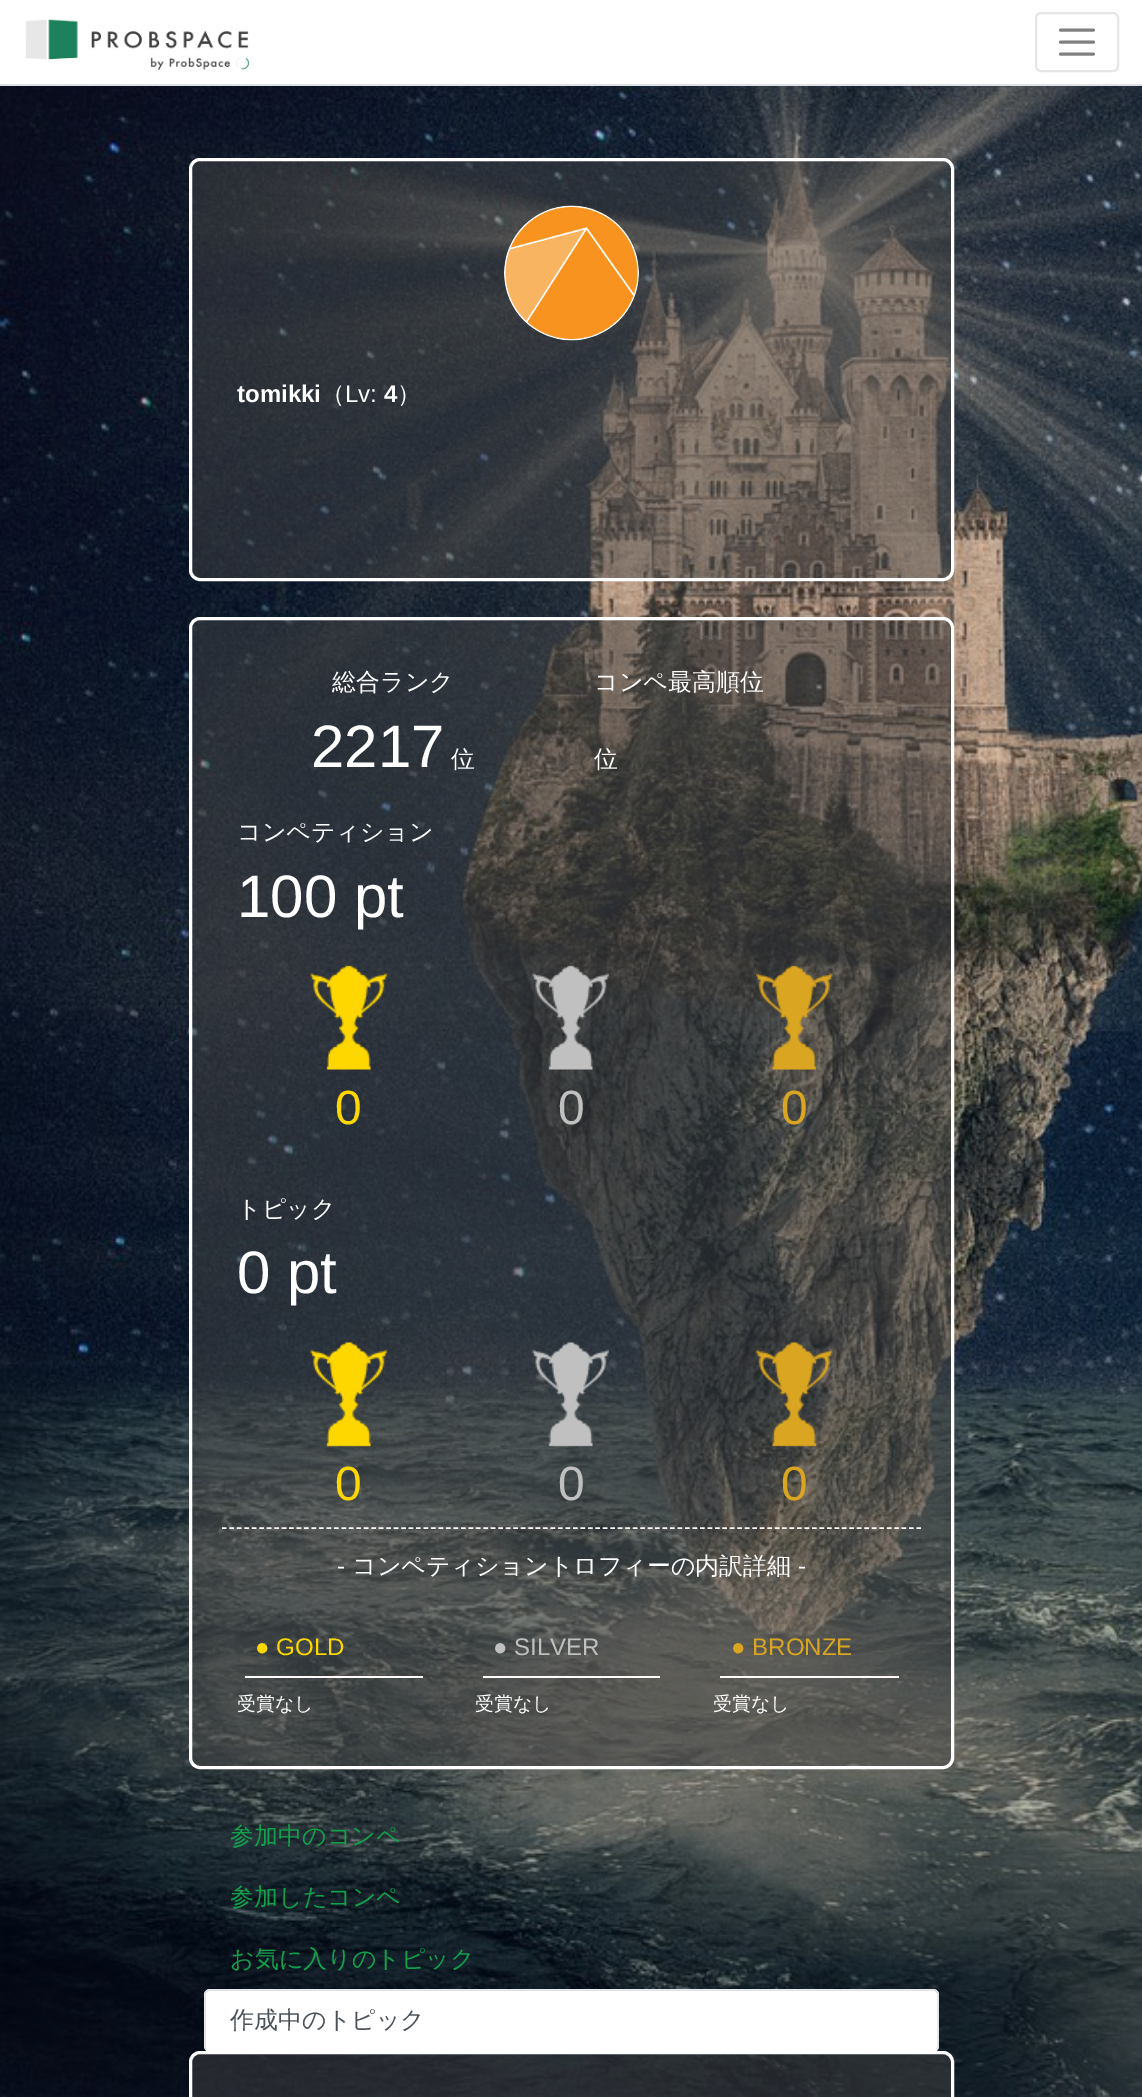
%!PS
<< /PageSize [1142 2097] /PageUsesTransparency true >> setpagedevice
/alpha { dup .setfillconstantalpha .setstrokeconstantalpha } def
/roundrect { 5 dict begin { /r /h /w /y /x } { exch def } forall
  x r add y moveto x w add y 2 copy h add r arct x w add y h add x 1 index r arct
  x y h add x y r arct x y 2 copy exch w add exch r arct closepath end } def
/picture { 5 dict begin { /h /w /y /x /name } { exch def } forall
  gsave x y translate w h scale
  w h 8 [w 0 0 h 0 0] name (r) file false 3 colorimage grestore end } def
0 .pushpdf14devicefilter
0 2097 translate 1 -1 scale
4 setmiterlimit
1 setgray
0 0 1142 2097 rectfill
0.871 0.886 0.902 setrgbcolor
0 84 1142 2 rectfill
(img1.rgb) 25 19 225 51 picture
0.902 setgray
2 setlinewidth
1036 13 82 58 5 roundrect stroke
0.502 setgray
3 setlinewidth
1 setlinecap
newpath 1060.5 30 moveto 1093.5 30 lineto 1060.5 42 moveto 1093.5 42 lineto 1060.5 54 moveto 1093.5 54 lineto stroke
(img2.rgb) 0 86 1142 2011 picture
0.48 alpha
0.271 setgray
190.5 159.5 762 420 9.5 roundrect fill
1 alpha
1 setgray
0 setlinecap
190.5 159.5 762 420 9.5 roundrect stroke
(img3.rgb) 504 205 135 136 picture
/LiberationSans-Bold [24 0 0 -24 0 0] selectfont
237 402 moveto (tomikki) show
/WenQuanYiZenHei-Medium [24 0 0 -24 0 0] selectfont
321 402 moveto (（) show
/LiberationSans-Regular [24 0 0 -24 0 0] selectfont
345 402 moveto (Lv:) show
/LiberationSans-Bold [24 0 0 -24 0 0] selectfont
384 402 moveto (4) show
/WenQuanYiZenHei-Medium [24 0 0 -24 0 0] selectfont
397 402 moveto (）) show
0.48 alpha
0.271 setgray
190.5 618.5 762 1149 9.5 roundrect fill
1 alpha
1 setgray
190.5 618.5 762 1149 9.5 roundrect stroke
332 690 moveto (総合ランク) show
/LiberationSans-Regular [60 0 0 -60 0 0] selectfont
311 767 moveto (2217) show
/WenQuanYiZenHei-Medium [24 0 0 -24 0 0] selectfont
451 767 moveto (位) show
594 690 moveto (コンペ最高順位) show
594 767 moveto (位) show
237 840 moveto (コンペティション) show
/LiberationSans-Regular [60 0 0 -60 0 0] selectfont
237 917 moveto (100 pt) show
(img4.rgb) 310 965 77 105 picture
/LiberationSans-Regular [48 0 0 -48 0 0] selectfont
1 0.843 0 setrgbcolor
335 1124 moveto (0) show
(img5.rgb) 532 965 77 105 picture
0.753 setgray
558 1124 moveto (0) show
(img6.rgb) 756 965 77 105 picture
0.855 0.647 0.125 setrgbcolor
781 1124 moveto (0) show
/WenQuanYiZenHei-Medium [24 0 0 -24 0 0] selectfont
1 setgray
237 1217 moveto (トピック) show
/LiberationSans-Regular [60 0 0 -60 0 0] selectfont
237 1293 moveto (0 pt) show
(img7.rgb) 310 1342 77 105 picture
/LiberationSans-Regular [48 0 0 -48 0 0] selectfont
1 0.843 0 setrgbcolor
335 1500 moveto (0) show
(img8.rgb) 532 1342 77 105 picture
0.753 setgray
558 1500 moveto (0) show
(img9.rgb) 756 1342 77 105 picture
0.855 0.647 0.125 setrgbcolor
781 1500 moveto (0) show
1 0.98 0.98 setrgbcolor
1.5 setlinewidth
[4.5 2.97] 0 setdash
newpath 222 1528 moveto 921 1528 lineto stroke
/LiberationSans-Regular [24 0 0 -24 0 0] selectfont
1 setgray
337 1574 moveto (-) show
/WenQuanYiZenHei-Medium [24 0 0 -24 0 0] selectfont
352 1574 moveto (コンペティショントロフィーの内訳詳細) show
/LiberationSans-Regular [24 0 0 -24 0 0] selectfont
798 1574 moveto (-) show
1 0.98 0.98 setrgbcolor
245 1676 178 2 rectfill
1 0.843 0 setrgbcolor
255 1655 moveto (● GOLD) show
/WenQuanYiZenHei-Medium [19 0 0 -19 0 0] selectfont
1 setgray
237 1710 moveto (受賞なし) show
1 0.98 0.98 setrgbcolor
483 1676 177 2 rectfill
/LiberationSans-Regular [24 0 0 -24 0 0] selectfont
0.753 setgray
493 1655 moveto (● SILVER) show
/WenQuanYiZenHei-Medium [19 0 0 -19 0 0] selectfont
1 setgray
475 1710 moveto (受賞なし) show
1 0.98 0.98 setrgbcolor
720 1676 179 2 rectfill
/LiberationSans-Regular [24 0 0 -24 0 0] selectfont
0.855 0.647 0.125 setrgbcolor
731 1655 moveto (● BRONZE) show
/WenQuanYiZenHei-Medium [19 0 0 -19 0 0] selectfont
1 setgray
713 1710 moveto (受賞なし) show
/WenQuanYiZenHei-Medium [24 0 0 -24 0 0] selectfont
0.071 0.631 0.294 setrgbcolor
230 1844 moveto (参加中のコンペ) show
230 1905 moveto (参加したコンペ) show
230 1967 moveto (お気に入りのトピック) show
0.48 alpha
0.271 setgray
190.5 2052.5 762 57 9.5 roundrect fill
1 alpha
1 setgray
3 setlinewidth
[] 0 setdash
190.5 2052.5 762 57 9.5 roundrect stroke
204 1989 735 63 6 roundrect fill
1.5 setlinewidth
newpath 936.5 2049.5 moveto 935.5 2050.5 934.5 2051 933 2051 curveto 210 2051 lineto 208.5 2051 207.5 2050.5 206.5 2049.5 curveto stroke
0.871 0.886 0.902 setrgbcolor
newpath 206.5 2049.5 moveto 205.5 2048.5 205 2047.5 205 2046 curveto 205 1995 lineto 205 1993.5 205.5 1992.5 206.5 1991.5 curveto 207.5 1990.5 208.5 1990 210 1990 curveto 933 1990 lineto 934.5 1990 935.5 1990.5 936.5 1991.5 curveto 937.5 1992.5 938 1993.5 938 1995 curveto 938 2046 lineto 938 2047.5 937.5 2048.5 936.5 2049.5 curveto stroke
0.286 0.314 0.341 setrgbcolor
230 2028 moveto (作成中のトピック) show
.poppdf14devicefilter showpage
